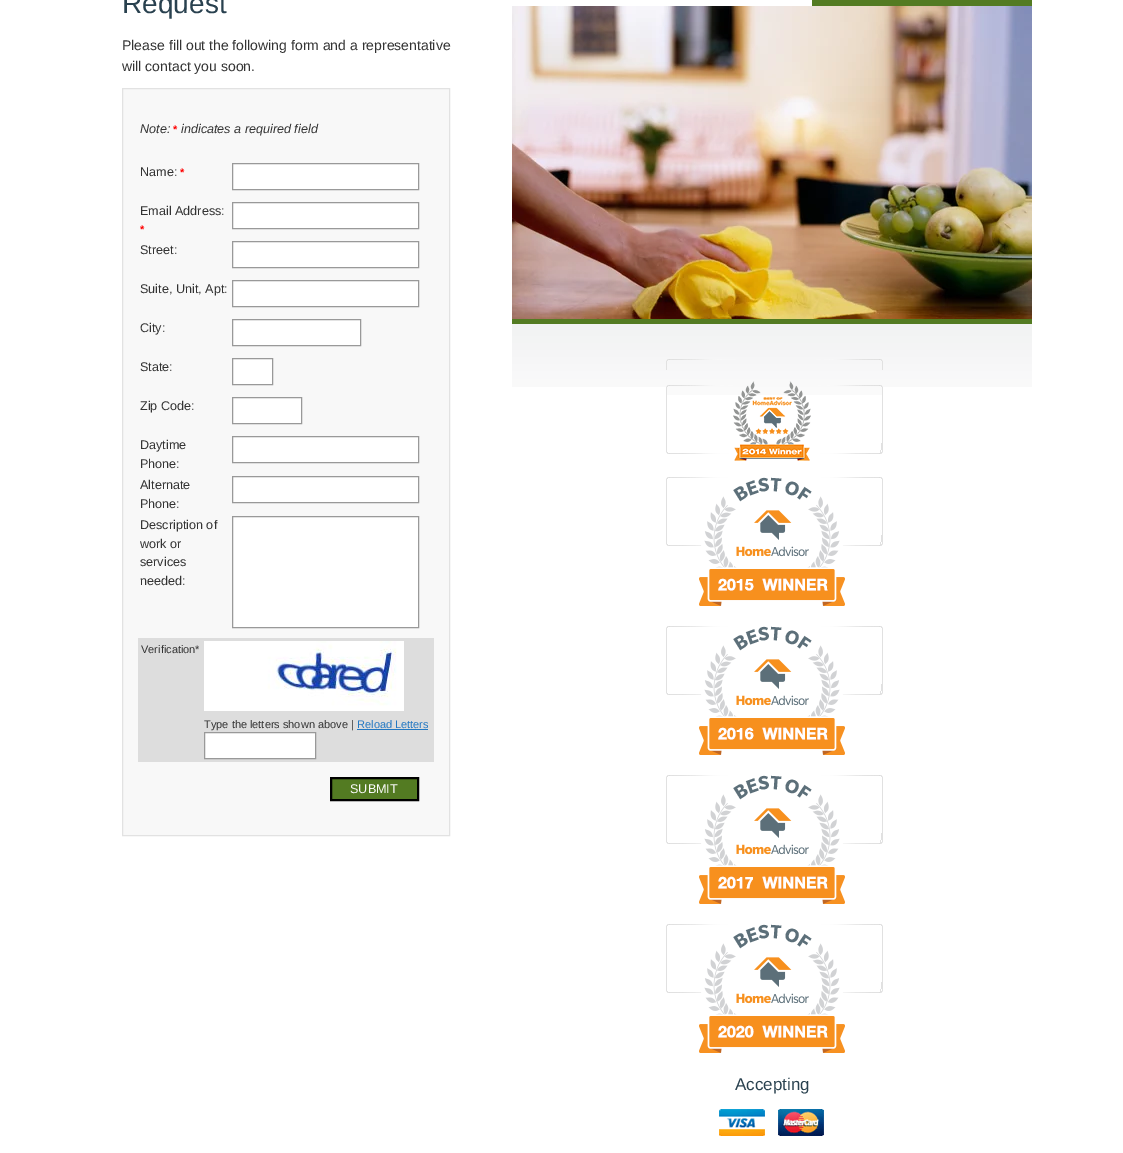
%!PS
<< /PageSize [1123 1153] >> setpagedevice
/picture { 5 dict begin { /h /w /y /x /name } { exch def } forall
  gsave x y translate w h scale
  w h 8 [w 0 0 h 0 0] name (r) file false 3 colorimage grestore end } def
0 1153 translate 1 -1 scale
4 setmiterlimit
1 setgray
0 0 1123 1153 rectfill
/LiberationSans-Regular [28 0 0 -28 0 0] selectfont
0.161 0.255 0.31 setrgbcolor
122 13 moveto (Request) show
/LiberationSans-Regular [14 0 0 -14 0 0] selectfont
0.2 setgray
122 50 moveto (Please fill out the following form and a representative) show
122 71 moveto (will contact you soon.) show
0.973 setgray
newpath 122.5 88.5 moveto 449.5 88.5 lineto 449.5 835.5 lineto 122.5 835.5 lineto closepath gsave fill grestore
0.886 setgray
stroke
/LiberationSans-Italic [12.6 0 0 -12.6 0 0] selectfont
0.2 setgray
140 133 moveto (Note:) show
/LiberationSans-Bold [11 0 0 -11 0 0] selectfont
1 0 0 setrgbcolor
173 133 moveto (*) show
/LiberationSans-Italic [12.6 0 0 -12.6 0 0] selectfont
0.2 setgray
181 133 moveto (indicates a required field) show
/LiberationSans-Regular [12.6 0 0 -12.6 0 0] selectfont
140 176 moveto (Name:) show
/LiberationSans-Bold [11 0 0 -11 0 0] selectfont
1 0 0 setrgbcolor
180 176 moveto (*) show
1 setgray
newpath 232.5 163.5 moveto 418.5 163.5 lineto 418.5 189.5 lineto 232.5 189.5 lineto closepath gsave fill grestore
0.6 setgray
stroke
/LiberationSans-Regular [12.6 0 0 -12.6 0 0] selectfont
0.2 setgray
140 215 moveto (Email Address:) show
/LiberationSans-Bold [11 0 0 -11 0 0] selectfont
1 0 0 setrgbcolor
140 233 moveto (*) show
1 setgray
newpath 232.5 202.5 moveto 418.5 202.5 lineto 418.5 228.5 lineto 232.5 228.5 lineto closepath gsave fill grestore
0.6 setgray
stroke
/LiberationSans-Regular [12.6 0 0 -12.6 0 0] selectfont
0.2 setgray
140 254 moveto (Street:) show
1 setgray
newpath 232.5 241.5 moveto 418.5 241.5 lineto 418.5 267.5 lineto 232.5 267.5 lineto closepath gsave fill grestore
0.6 setgray
stroke
0.2 setgray
140 293 moveto (Suite, Unit, Apt:) show
1 setgray
newpath 232.5 280.5 moveto 418.5 280.5 lineto 418.5 306.5 lineto 232.5 306.5 lineto closepath gsave fill grestore
0.6 setgray
stroke
0.2 setgray
140 332 moveto (City:) show
1 setgray
newpath 232.5 319.5 moveto 360.5 319.5 lineto 360.5 345.5 lineto 232.5 345.5 lineto closepath gsave fill grestore
0.6 setgray
stroke
0.2 setgray
140 371 moveto (State:) show
1 setgray
newpath 232.5 358.5 moveto 272.5 358.5 lineto 272.5 384.5 lineto 232.5 384.5 lineto closepath gsave fill grestore
0.6 setgray
stroke
0.2 setgray
140 410 moveto (Zip Code:) show
1 setgray
newpath 232.5 397.5 moveto 301.5 397.5 lineto 301.5 423.5 lineto 232.5 423.5 lineto closepath gsave fill grestore
0.6 setgray
stroke
0.2 setgray
140 449 moveto (Daytime) show
140 468 moveto (Phone:) show
1 setgray
newpath 232.5 436.5 moveto 418.5 436.5 lineto 418.5 462.5 lineto 232.5 462.5 lineto closepath gsave fill grestore
0.6 setgray
stroke
0.2 setgray
140 489 moveto (Alternate) show
140 508 moveto (Phone:) show
1 setgray
newpath 232.5 476.5 moveto 418.5 476.5 lineto 418.5 502.5 lineto 232.5 502.5 lineto closepath gsave fill grestore
0.6 setgray
stroke
0.2 setgray
140 529 moveto (Description of) show
140 548 moveto (work or) show
140 566 moveto (services) show
140 585 moveto (needed:) show
1 setgray
newpath 232.5 516.5 moveto 418.5 516.5 lineto 418.5 627.5 lineto 232.5 627.5 lineto closepath gsave fill grestore
0.6 setgray
stroke
0.867 setgray
138 638 296 124 rectfill
/LiberationSans-Regular [11 0 0 -11 0 0] selectfont
0.2 setgray
141 653 moveto (Verification*) show
(img1.rgb) 204 641 200 70 picture
204 728 moveto (Type the letters shown above |) show
0.137 0.471 0.761 setrgbcolor
357 728 moveto (Reload Letters) show
357 729 71 1 rectfill
1 setgray
newpath 204.5 732.5 moveto 315.5 732.5 lineto 315.5 758.5 lineto 204.5 758.5 lineto closepath gsave fill grestore
0.6 setgray
stroke
0.325 0.482 0.133 setrgbcolor
newpath 331 778 moveto 418 778 lineto 418 800 lineto 331 800 lineto closepath gsave fill grestore
0 setgray
2 setlinewidth
stroke
/LiberationSans-Regular [12.6 0 0 -12.6 0 0] selectfont
0.98 setgray
350 793 moveto (SUBMIT) show
(img2.rgb) 512 324 520 63 picture
0.325 0.482 0.133 setrgbcolor
812 0 220 6 rectfill
512 319 520 5 rectfill
(img3.rgb) 512 6 520 313 picture
(img4.rgb) 666 359 217 11 picture
(img5.rgb) 666 385 217 69 picture
(img6.rgb) 733 381 78 80 picture
(img7.rgb) 666 477 217 69 picture
(img8.rgb) 699 477 146 129 picture
(img7.rgb) 666 626 217 69 picture
(img9.rgb) 699 626 146 129 picture
(img7.rgb) 666 775 217 69 picture
(img10.rgb) 699 775 146 129 picture
(img7.rgb) 666 924 217 69 picture
(img11.rgb) 699 924 146 129 picture
/LiberationSans-Regular [17 0 0 -17 0 0] selectfont
0.161 0.255 0.31 setrgbcolor
735 1090 moveto (Accepting) show
(img12.rgb) 719 1109 46 27 picture
(img13.rgb) 778 1109 46 27 picture
showpage
